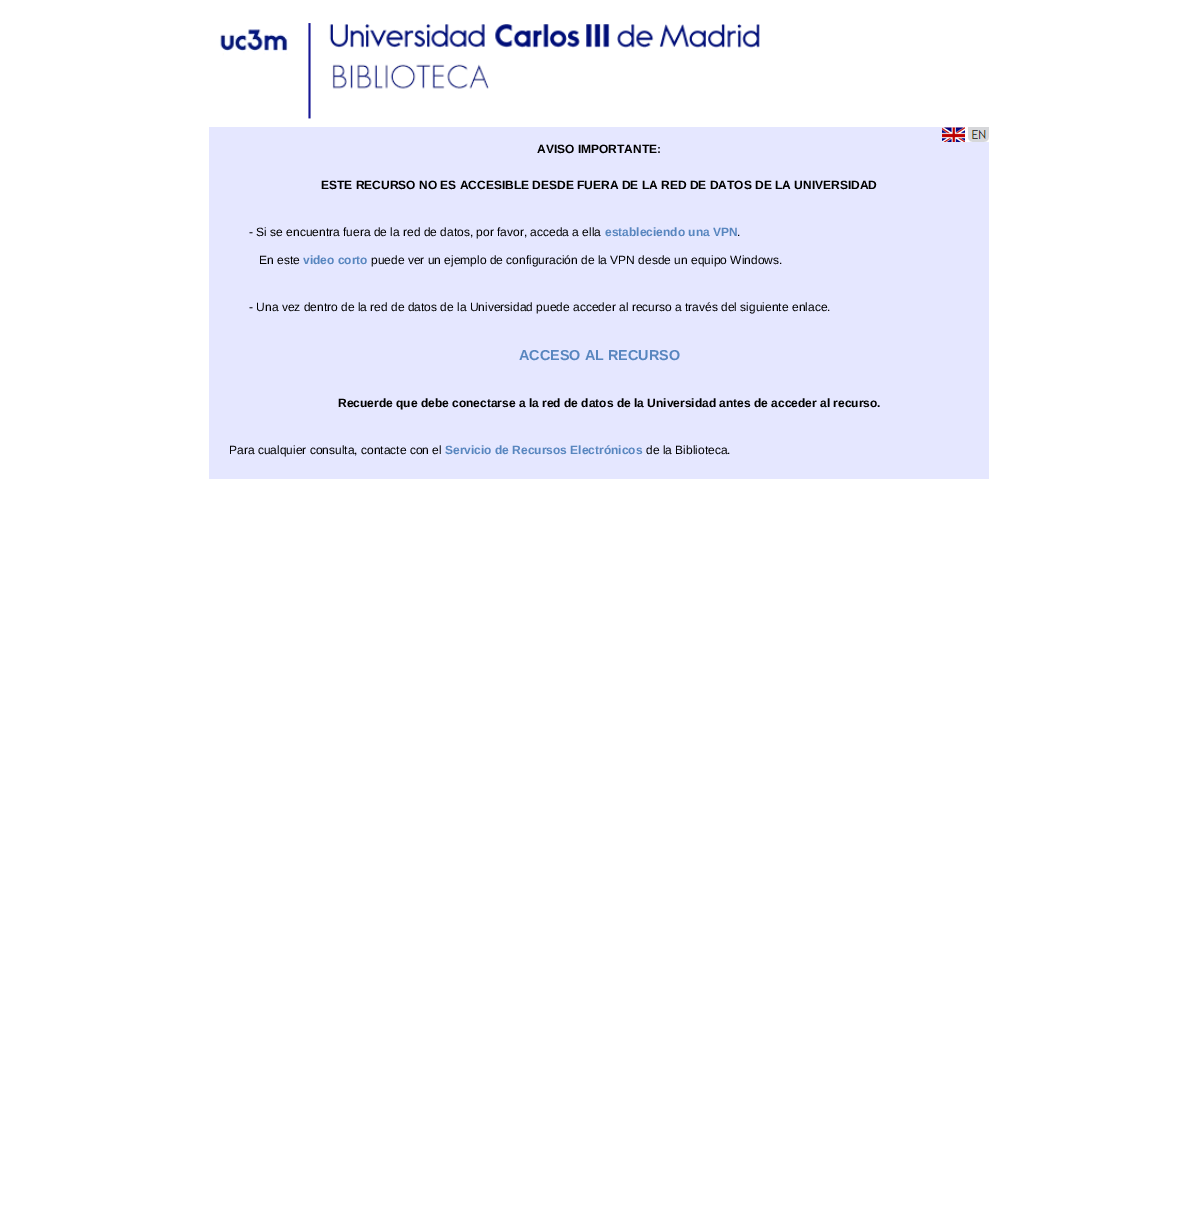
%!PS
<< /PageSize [1198 1231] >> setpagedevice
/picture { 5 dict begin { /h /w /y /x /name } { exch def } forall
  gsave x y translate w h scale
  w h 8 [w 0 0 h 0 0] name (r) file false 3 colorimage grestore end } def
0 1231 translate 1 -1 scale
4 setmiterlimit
1 setgray
0 0 1198 1231 rectfill
(img1.rgb) 209 8 780 119 picture
0.898 0.906 1 setrgbcolor
209 127 733 15 rectfill
(img2.rgb) 942 127 47 15 picture
209 142 780 337 rectfill
/LiberationSans-Bold [12 0 0 -12 0 0] selectfont
0 setgray
537 153 moveto (AVISO IMPORTANTE:) show
321 189 moveto (ESTE RECURSO NO ES ACCESIBLE DESDE FUERA DE LA RED DE DATOS DE LA UNIVERSIDAD) show
/LiberationSans-Regular [12 0 0 -12 0 0] selectfont
249 236 moveto (- Si se encuentra fuera de la red de datos, por favor, acceda a ella) show
/LiberationSans-Bold [12 0 0 -12 0 0] selectfont
0.345 0.525 0.749 setrgbcolor
605 236 moveto (estableciendo una VPN) show
/LiberationSans-Regular [12 0 0 -12 0 0] selectfont
0 setgray
737 236 moveto (.) show
259 264 moveto (En este) show
/LiberationSans-Bold [12 0 0 -12 0 0] selectfont
0.345 0.525 0.749 setrgbcolor
303 264 moveto (video corto) show
/LiberationSans-Regular [12 0 0 -12 0 0] selectfont
0 setgray
371 264 moveto (puede ver un ejemplo de configuración de la VPN desde un equipo Windows.) show
249 311 moveto (- Una vez dentro de la red de datos de la Universidad puede acceder al recurso a través del siguiente enlace.) show
/LiberationSans-Bold [14.4 0 0 -14.4 0 0] selectfont
0.345 0.525 0.749 setrgbcolor
519 360 moveto (ACCESO AL RECURSO) show
/LiberationSans-Bold [12 0 0 -12 0 0] selectfont
0 setgray
338 407 moveto (Recuerde que debe conectarse a la red de datos de la Universidad antes de acceder al recurso.) show
/LiberationSans-Regular [12 0 0 -12 0 0] selectfont
229 454 moveto (Para cualquier consulta, contacte con el) show
/LiberationSans-Bold [12 0 0 -12 0 0] selectfont
0.345 0.525 0.749 setrgbcolor
445 454 moveto (Servicio de Recursos Electrónicos) show
/LiberationSans-Regular [12 0 0 -12 0 0] selectfont
0 setgray
646 454 moveto (de la Biblioteca.) show
showpage
